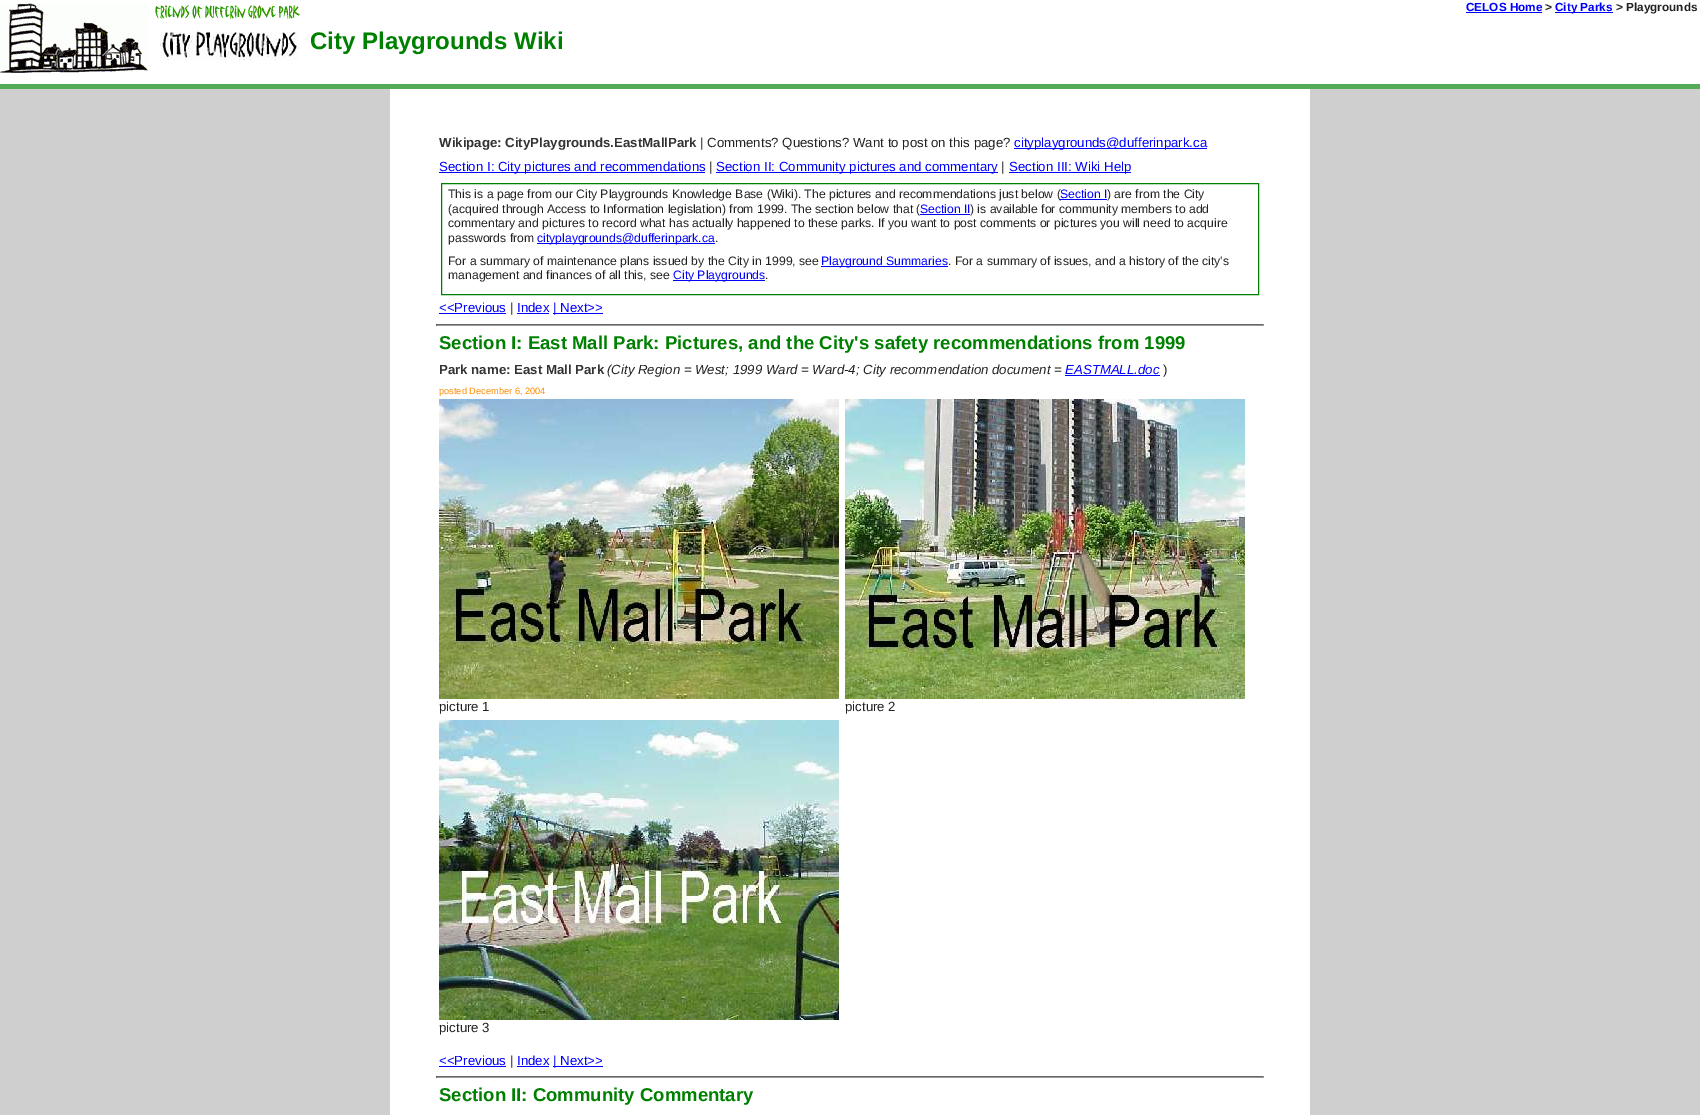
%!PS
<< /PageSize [1700 1115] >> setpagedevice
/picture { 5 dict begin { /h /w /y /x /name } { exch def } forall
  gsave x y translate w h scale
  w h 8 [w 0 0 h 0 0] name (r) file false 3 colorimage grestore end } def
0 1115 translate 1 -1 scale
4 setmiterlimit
0.812 setgray
0 0 1700 1115 rectfill
1 setgray
0 0 1700 84 rectfill
0.333 0.667 0.333 setrgbcolor
0 84 1700 5 rectfill
(img1.rgb) 0 3 148 70 picture
(img2.rgb) 155 5 145 14 picture
(img3.rgb) 160 31 139 29 picture
/LiberationSans-Bold [24 0 0 -24 0 0] selectfont
0 0.502 0 setrgbcolor
310 49 moveto (City Playgrounds Wiki) show
/LiberationSans-Bold [11.75 0 0 -11.75 0 0] selectfont
0 0 1 setrgbcolor
1466 11 moveto (CELOS Home) show
1466 12 76 1 rectfill
0.133 setgray
1545 11 moveto (>) show
0 0 1 setrgbcolor
1555 12 58 1 rectfill
1555 11 moveto (City Parks) show
0.133 setgray
1616 11 moveto (> Playgrounds) show
1 setgray
390 89 920 1026 rectfill
/LiberationSans-Bold [13.25 0 0 -13.25 0 0] selectfont
0.2 setgray
439 147 moveto (Wikipage: CityPlaygrounds.EastMallPark) show
/LiberationSans-Regular [13.25 0 0 -13.25 0 0] selectfont
0.133 setgray
700 147 moveto (| Comments? Questions? Want to post on this page?) show
0 0 1 setrgbcolor
1014 148 193 1 rectfill
1014 147 moveto (cityplaygrounds@dufferinpark.ca) show
439 172 266 1 rectfill
439 171 moveto (Section I: City pictures and recommendations) show
0.133 setgray
709 171 moveto (|) show
0 0 1 setrgbcolor
716 172 282 1 rectfill
716 171 moveto (Section II: Community pictures and commentary) show
0.133 setgray
1001 171 moveto (|) show
0 0 1 setrgbcolor
1009 172 122 1 rectfill
1009 171 moveto (Section III: Wiki Help) show
0 0.502 0 setrgbcolor
441.5 183.5 817 111 rectstroke
/LiberationSans-Regular [12.2 0 0 -12.2 0 0] selectfont
0.133 setgray
448 198 moveto (This is a page from our City Playgrounds Knowledge Base \(Wiki\). The pictures and recommendations just below \() show
0 0 1 setrgbcolor
1060 198 moveto (Section I) show
1060 199 47 1 rectfill
0.133 setgray
1107 198 moveto (\) are from the City) show
448 213 moveto (\(acquired through Access to Information legislation\) from 1999. The section below that \() show
0 0 1 setrgbcolor
920 213 moveto (Section II) show
920 214 50 1 rectfill
0.133 setgray
970 213 moveto (\) is available for community members to add) show
448 227 moveto (commentary and pictures to record what has actually happened to these parks. If you want to post comments or pictures you will need to acquire) show
448 242 moveto (passwords from) show
0 0 1 setrgbcolor
537 243 178 1 rectfill
537 242 moveto (cityplaygrounds@dufferinpark.ca) show
0.133 setgray
715 242 moveto (.) show
448 265 moveto (For a summary of maintenance plans issued by the City in 1999, see) show
0 0 1 setrgbcolor
821 266 127 1 rectfill
821 265 moveto (Playground Summaries) show
0.133 setgray
948 265 moveto (. For a summary of issues, and a history of the city's) show
448 279 moveto (management and finances of all this, see) show
0 0 1 setrgbcolor
673 280 92 1 rectfill
673 279 moveto (City Playgrounds) show
0.133 setgray
765 279 moveto (.) show
/LiberationSans-Regular [13.25 0 0 -13.25 0 0] selectfont
0 0 1 setrgbcolor
439 312 moveto (<<Previous) show
439 313 67 1 rectfill
0.133 setgray
510 312 moveto (|) show
0 0 1 setrgbcolor
517 312 moveto (Index) show
517 313 32 1 rectfill
553 313 50 1 rectfill
553 312 moveto (| Next>>) show
0.6 setgray
436 325 828 1 rectfill
0.4 setgray
436 324 828 1 rectfill
0.6 setgray
1263 324 1 2 rectfill
0.4 setgray
436 324 1 2 rectfill
/LiberationSans-Bold [18.55 0 0 -18.55 0 0] selectfont
0 0.502 0 setrgbcolor
439 349 moveto (Section I: East Mall Park: Pictures, and the City's safety recommendations from 1999) show
/LiberationSans-Bold [13.25 0 0 -13.25 0 0] selectfont
0.2 setgray
439 374 moveto (Park name: East Mall Park) show
/LiberationSans-Italic [13.25 0 0 -13.25 0 0] selectfont
0.133 setgray
607 374 moveto (\(City Region = West; 1999 Ward = Ward-4; City recommendation document =) show
0 0 1 setrgbcolor
1065 374 moveto (EASTMALL.doc) show
1065 375 95 1 rectfill
/LiberationSans-Regular [13.25 0 0 -13.25 0 0] selectfont
0.133 setgray
1163 374 moveto (\)) show
/LiberationSans-Regular [9.25 0 0 -9.25 0 0] selectfont
1 0.549 0 setrgbcolor
439 394 moveto (posted December 6, 2004) show
(img4.rgb) 439 399 400 300 picture
/LiberationSans-Regular [13.25 0 0 -13.25 0 0] selectfont
0.133 setgray
439 711 moveto (picture 1) show
(img5.rgb) 845 399 400 300 picture
845 711 moveto (picture 2) show
(img6.rgb) 439 720 400 300 picture
439 1032 moveto (picture 3) show
0 0 1 setrgbcolor
439 1065 moveto (<<Previous) show
439 1066 67 1 rectfill
0.133 setgray
510 1065 moveto (|) show
0 0 1 setrgbcolor
517 1065 moveto (Index) show
517 1066 32 1 rectfill
553 1066 50 1 rectfill
553 1065 moveto (| Next>>) show
0.6 setgray
436 1077 828 1 rectfill
0.4 setgray
436 1076 828 1 rectfill
0.6 setgray
1263 1076 1 2 rectfill
0.4 setgray
436 1076 1 2 rectfill
/LiberationSans-Bold [18.55 0 0 -18.55 0 0] selectfont
0 0.502 0 setrgbcolor
439 1101 moveto (Section II: Community Commentary) show
showpage
